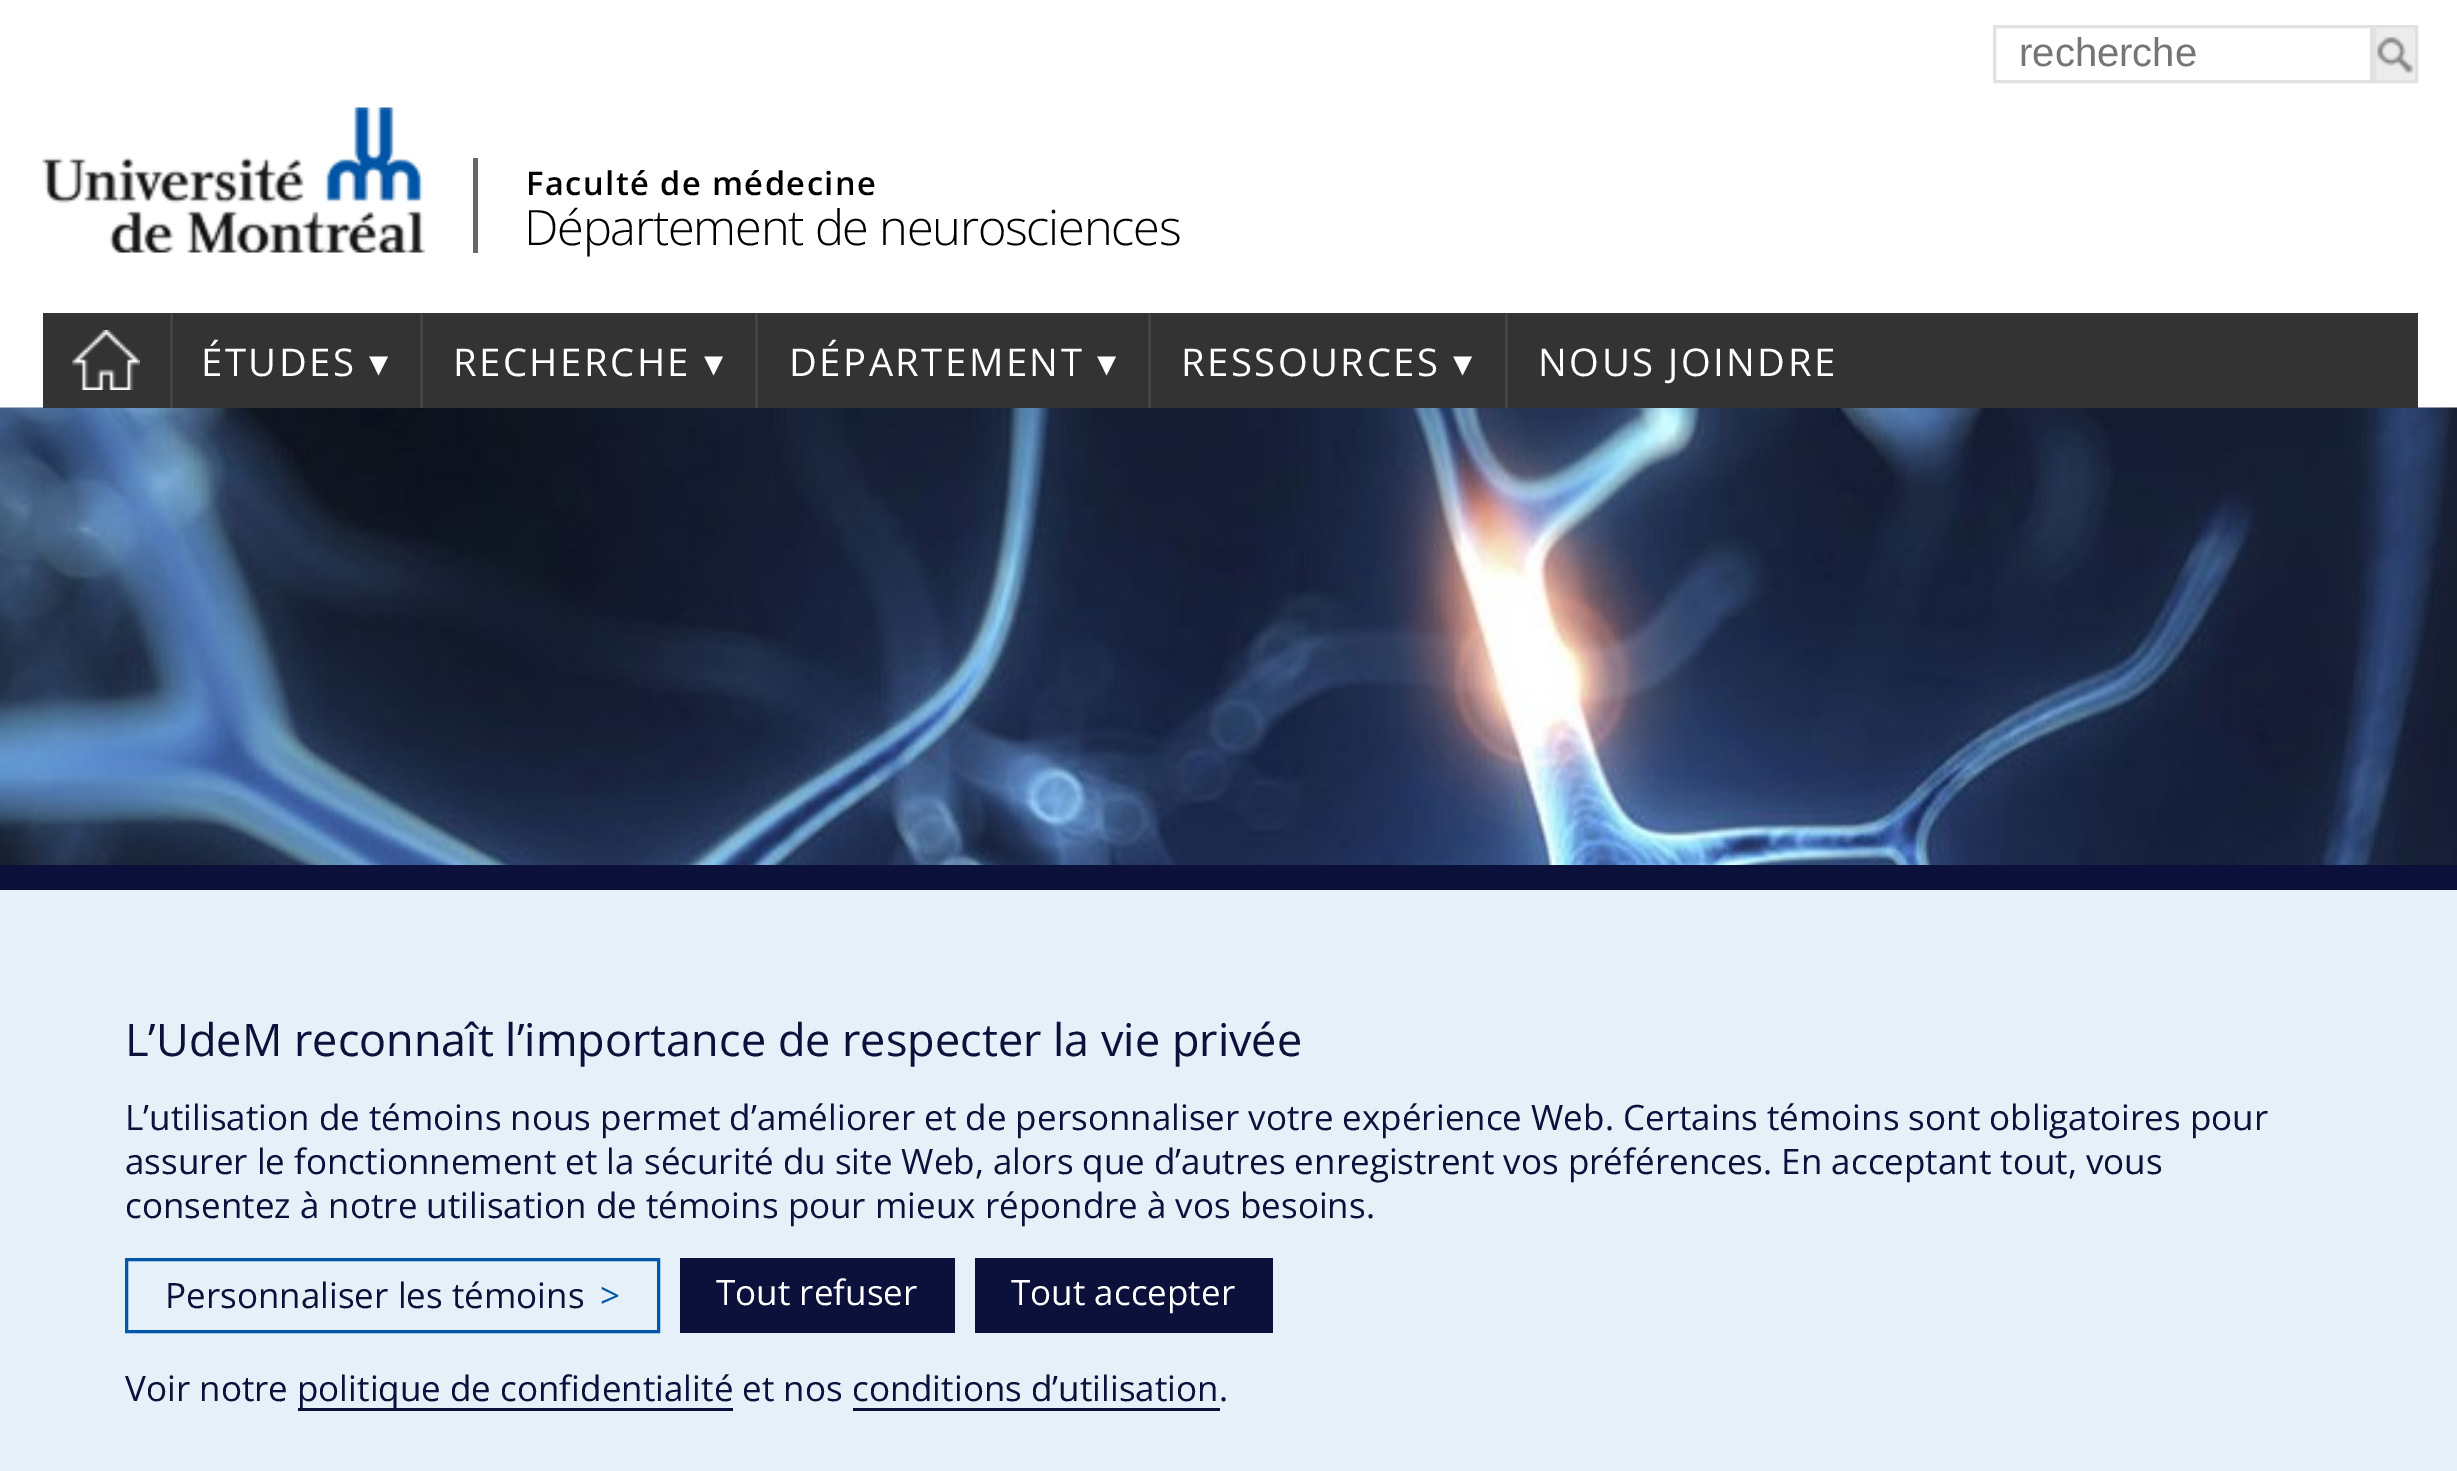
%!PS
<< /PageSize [2457 1471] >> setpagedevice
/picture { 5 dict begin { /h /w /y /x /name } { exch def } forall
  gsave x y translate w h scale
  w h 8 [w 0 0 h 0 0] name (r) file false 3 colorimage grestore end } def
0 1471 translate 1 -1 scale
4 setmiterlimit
1 setgray
0 0 2457 1471 rectfill
0.882 setgray
3 setlinewidth
1994.5 26.5 377 55 rectstroke
/LiberationSans-Regular [40 0 0 -40 0 0] selectfont
0.459 setgray
2019 66 moveto (recherche) show
0.925 setgray
2376 28 39 52 rectfill
(img1.rgb) 2376 36 38 38 picture
0.882 setgray
2374.5 26.5 42 55 rectstroke
(img2.rgb) 42 107 383 146 picture
0.4 setgray
473 158 5 95 rectfill
/OpenSans-SemiBold [32.5 0 0 -32.5 0 0] selectfont
0 setgray
526 195 moveto 1.5 0 (Faculté de médecine) ashow
/OpenSans-Light [48.75 0 0 -48.75 0 0] selectfont
524 245 moveto -1.25 0 (Département de neurosciences) ashow
(img4.rgb) 0 407 2457 458 picture
0.2 setgray
43 313 2375 95 rectfill
0.267 setgray
170 313 3 95 rectfill
(img3.rgb) 72 330 68 60 picture
420 313 3 95 rectfill
/OpenSans-Regular [38.25 0 0 -38.25 0 0] selectfont
1 setgray
201 376 moveto 2.5 0 (ÉTUDES) ashow
/DejaVuSans-Regular [38.25 0 0 -38.25 0 0] selectfont
369 376 moveto 2.5 0 (▾) ashow
0.267 setgray
755 313 3 95 rectfill
/OpenSans-Regular [38.25 0 0 -38.25 0 0] selectfont
1 setgray
453 376 moveto 2.5 0 (RECHERCHE) ashow
/DejaVuSans-Regular [38.25 0 0 -38.25 0 0] selectfont
704 376 moveto 2.5 0 (▾) ashow
0.267 setgray
1148 313 3 95 rectfill
/OpenSans-Regular [38.25 0 0 -38.25 0 0] selectfont
1 setgray
789 376 moveto 2.5 0 (DÉPARTEMENT) ashow
/DejaVuSans-Regular [38.25 0 0 -38.25 0 0] selectfont
1097 376 moveto 2.5 0 (▾) ashow
0.267 setgray
1505 313 3 95 rectfill
/OpenSans-Regular [38.25 0 0 -38.25 0 0] selectfont
1 setgray
1181 376 moveto 2.5 0 (RESSOURCES) ashow
/DejaVuSans-Regular [38.25 0 0 -38.25 0 0] selectfont
1453 376 moveto 2.5 0 (▾) ashow
/OpenSans-Regular [38.25 0 0 -38.25 0 0] selectfont
1538 376 moveto 2.5 0 (NOUS JOINDRE) ashow
0.898 0.941 0.973 setrgbcolor
0 890 2457 581 rectfill
0.043 0.067 0.227 setrgbcolor
0 865 2457 25 rectfill
/OpenSans-Regular [45 0 0 -45 0 0] selectfont
125 1056 moveto (L’UdeM reconnaît l’importance de respecter la vie privée) show
/OpenSans-Regular [35 0 0 -35 0 0] selectfont
125 1130 moveto (L’utilisation de témoins nous permet d’améliorer et de personnaliser votre expérience Web. Certains témoins sont obligatoires pour) show
125 1174 moveto (assurer le fonctionnement et la sécurité du site Web, alors que d’autres enregistrent vos préférences. En acceptant tout, vous) show
125 1218 moveto (consentez à notre utilisation de témoins pour mieux répondre à vos besoins.) show
0 0.341 0.675 setrgbcolor
126.5 1259.5 532 72 rectstroke
0.043 0.067 0.227 setrgbcolor
165 1308 moveto (Personnaliser les témoins) show
0 0.341 0.675 setrgbcolor
600 1308 moveto (>) show
0.043 0.067 0.227 setrgbcolor
680 1258 275 75 rectfill
1 setgray
716 1305 moveto (Tout refuser) show
0.043 0.067 0.227 setrgbcolor
975 1258 298 75 rectfill
1 setgray
1011 1305 moveto (Tout accepter) show
0.043 0.067 0.227 setrgbcolor
125 1401 moveto (Voir notre) show
298 1408 435 3 rectfill
297 1401 moveto (politique de confidentialité et nos conditions d’utilisation.) show
853 1408 367 3 rectfill
showpage
